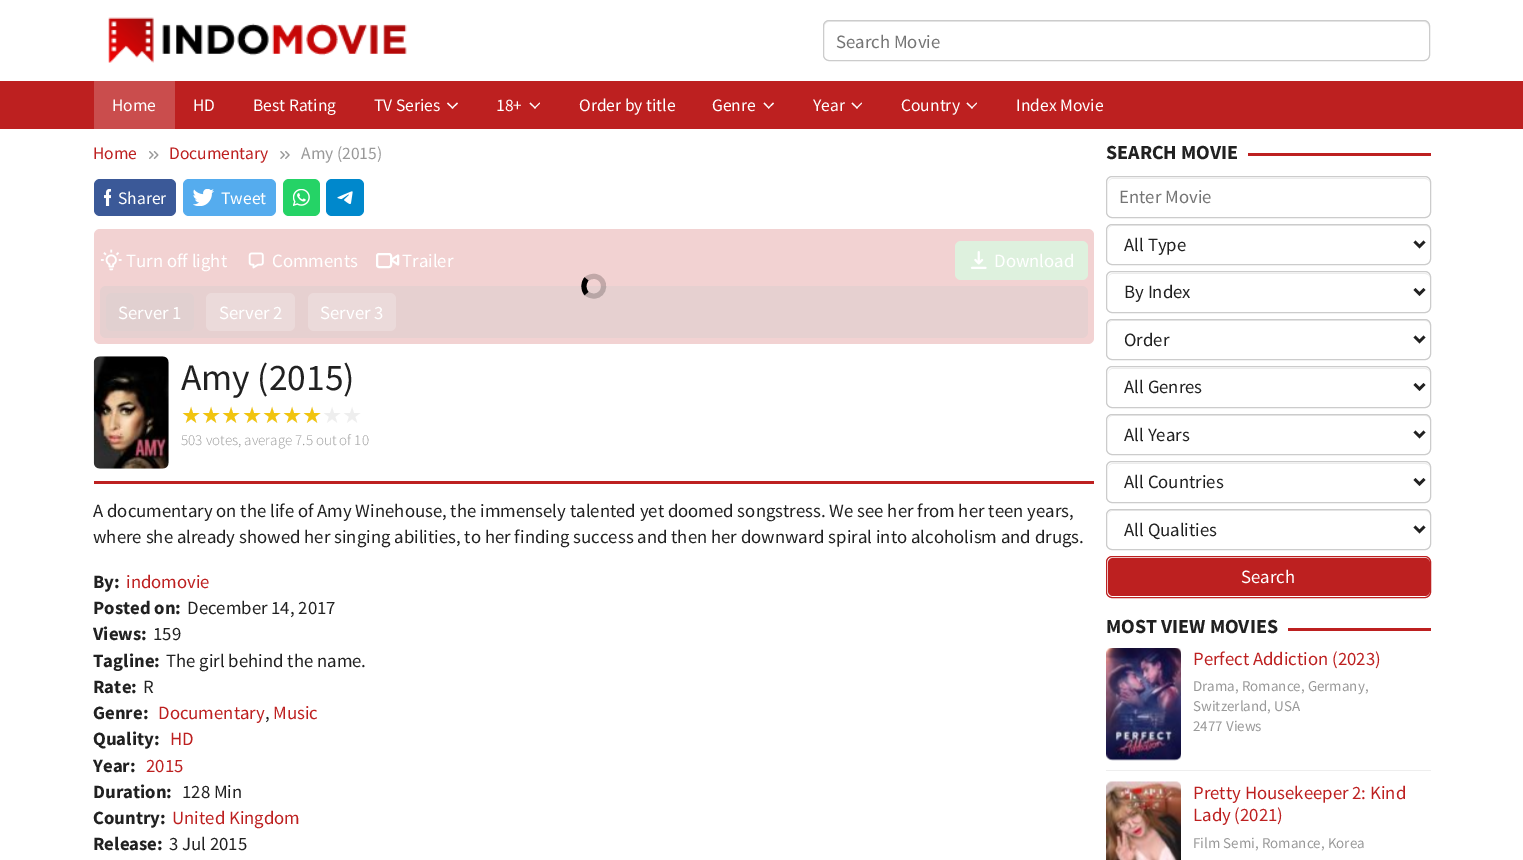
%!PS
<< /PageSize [1523 860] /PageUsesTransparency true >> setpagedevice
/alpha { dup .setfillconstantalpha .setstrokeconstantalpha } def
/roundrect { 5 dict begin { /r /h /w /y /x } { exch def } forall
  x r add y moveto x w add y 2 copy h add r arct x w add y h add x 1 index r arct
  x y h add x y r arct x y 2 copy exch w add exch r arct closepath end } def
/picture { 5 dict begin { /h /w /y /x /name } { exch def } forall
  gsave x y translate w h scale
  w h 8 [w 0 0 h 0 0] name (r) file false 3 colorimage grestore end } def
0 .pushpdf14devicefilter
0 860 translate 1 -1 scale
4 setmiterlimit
1 setgray
0 0 1523 860 rectfill
(img1.rgb) 108 17 299 46 picture
0.925 setgray
newpath 829 22 moveto 1424 22 lineto 1427 22 1429 25 1429 28 curveto 1429 25 1428 21 1424 21 curveto 829 21 lineto 825 21 824 25 824 28 curveto 824 25 826 22 829 22 curveto closepath fill
0.8 setgray
823.5 20.5 606 40 5.5 roundrect stroke
/SourceSansPro-Regular [18.75 0 0 -18.75 0 0] selectfont
0.459 setgray
836 48 moveto (Search Movie) show
0.741 0.125 0.125 setrgbcolor
0 81 1523 48 rectfill
0.792 0.302 0.302 setrgbcolor
94 81 81 48 rectfill
/SourceSansPro-Regular [17.5 0 0 -17.5 0 0] selectfont
1 setgray
112 111 moveto (Home) show
193 111 moveto (HD) show
253 111 moveto (Best Rating) show
374 111 moveto (TV Series) show
newpath 457 102.5 moveto 458 103.5 lineto 452.5 108.5 lineto 451.5 108 lineto closepath fill
newpath 448 102.5 moveto 453.5 108 lineto 452.5 108.5 lineto 447 103.5 lineto closepath fill
496 111 moveto (18+) show
newpath 539.5 102.5 moveto 540 103.5 lineto 535 108.5 lineto 534 108 lineto closepath fill
newpath 530.5 102.5 moveto 536 108 lineto 535 108.5 lineto 529.5 103.5 lineto closepath fill
579 111 moveto (Order by title) show
712 111 moveto (Genre) show
newpath 773 102.5 moveto 774 103.5 lineto 768.5 108.5 lineto 768 108 lineto closepath fill
newpath 764.5 102.5 moveto 769.5 108 lineto 768.5 108.5 lineto 763.5 103.5 lineto closepath fill
813 111 moveto (Year) show
newpath 861.5 102.5 moveto 862 103.5 lineto 857 108.5 lineto 856 108 lineto closepath fill
newpath 852.5 102.5 moveto 858 108 lineto 857 108.5 lineto 851.5 103.5 lineto closepath fill
901 111 moveto (Country) show
newpath 976.5 102.5 moveto 977 103.5 lineto 972 108.5 lineto 971 108 lineto closepath fill
newpath 967.5 102.5 moveto 973 108 lineto 972 108.5 lineto 966.5 103.5 lineto closepath fill
1016 111 moveto (Index Movie) show
0.741 0.125 0.125 setrgbcolor
93 159 moveto (Home) show
(img2.rgb) 149 151 10 8 picture
169 159 moveto (Documentary) show
(img3.rgb) 280 151 10 8 picture
0.6 setgray
301 159 moveto (Amy \(2015\)) show
0.231 0.349 0.596 setrgbcolor
94 179 82 37 6 roundrect fill
(img4.rgb) 104 189 7 17 picture
1 setgray
118 204 moveto (Sharer) show
0.333 0.675 0.933 setrgbcolor
183 179 93 37 6 roundrect fill
(img5.rgb) 193 189 21 17 picture
1 setgray
221 204 moveto (Tweet) show
0.145 0.827 0.4 setrgbcolor
283 179 37 37 6 roundrect fill
(img6.rgb) 293 189 17 17 picture
0 0.533 0.8 setrgbcolor
326 179 38 37 6 roundrect fill
(img7.rgb) 337 191 16 13 picture
0.949 0.824 0.824 setrgbcolor
94 229 1000 115 6 roundrect fill
(img8.rgb) 100 249 22 22 picture
/SourceSansPro-Regular [18.75 0 0 -18.75 0 0] selectfont
1 setgray
126 267 moveto (Turn off light) show
(img9.rgb) 248 252 16 17 picture
272 267 moveto (Comments) show
1.9 setlinewidth
1 setlinecap
1 setlinejoin
newpath 398 255.5 moveto 391 260 lineto 398 264.5 lineto closepath stroke
2 setlinewidth
0 setlinecap
0 setlinejoin
377 254 14 13 2 roundrect stroke
402 267 moveto (Trailer) show
0.871 0.945 0.871 setrgbcolor
955 241 133 39 6 roundrect fill
(img10.rgb) 970 251 17 18 picture
1 setgray
994 267 moveto (Download) show
0.902 0.816 0.816 setrgbcolor
100 286 988 52 6 roundrect fill
0.2 alpha
0 setgray
5 setlinewidth
newpath 586.5 279 moveto 589 277 592.5 276 595.5 276.5 curveto 607.5 279 605.5 296 594 296 curveto 591 296 588.5 295 586.5 293.5 curveto stroke
1 alpha
newpath 586.5 293.5 moveto 583 289.5 583 283 586.5 279 curveto stroke
0.882 0.816 0.816 setrgbcolor
106 293 88 38 6 roundrect fill
1 setgray
118 319 moveto (Server 1) show
0.922 0.855 0.855 setrgbcolor
206 293 89 38 6 roundrect fill
1 setgray
219 319 moveto (Server 2) show
0.922 0.855 0.855 setrgbcolor
308 293 88 38 6 roundrect fill
1 setgray
320 319 moveto (Server 3) show
0.741 0.125 0.125 setrgbcolor
94 481 1000 3 rectfill
(img11.rgb) 93 356 76 113 picture
/SourceSansPro-Regular [37.5 0 0 -37.5 0 0] selectfont
0.129 setgray
181 390 moveto (Amy \(2015\)) show
/DejaVuSans-Regular [22.5 0 0 -22.5 0 0] selectfont
0.933 setgray
181 423 moveto (★★★★★★★★★) show
0.945 0.769 0.059 setrgbcolor
181 423 moveto (★★★★★★★) show
/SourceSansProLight-Light [15 0 0 -15 0 0] selectfont
0.6 setgray
181 445 moveto (503 votes, average 7.5 out of 10) show
/SourceSansPro-Regular [18.75 0 0 -18.75 0 0] selectfont
0.129 setgray
93 517 moveto (A documentary on the life of Amy Winehouse, the immensely talented yet doomed songstress. We see her from her teen years,) show
93 543 moveto (where she already showed her singing abilities, to her finding success and then her downward spiral into alcoholism and drugs.) show
/SourceSansPro-Bold [18.75 0 0 -18.75 0 0] selectfont
93 588 moveto (By:) show
/SourceSansPro-Regular [18.75 0 0 -18.75 0 0] selectfont
0.741 0.125 0.125 setrgbcolor
126 588 moveto (indomovie) show
/SourceSansPro-Bold [18.75 0 0 -18.75 0 0] selectfont
0.129 setgray
93 614 moveto (Posted on:) show
/SourceSansPro-Regular [18.75 0 0 -18.75 0 0] selectfont
187 614 moveto (December 14, 2017) show
/SourceSansPro-Bold [18.75 0 0 -18.75 0 0] selectfont
93 640 moveto (Views:) show
/SourceSansPro-Regular [18.75 0 0 -18.75 0 0] selectfont
153 640 moveto (159) show
/SourceSansPro-Bold [18.75 0 0 -18.75 0 0] selectfont
93 667 moveto (Tagline:) show
/SourceSansPro-Regular [18.75 0 0 -18.75 0 0] selectfont
166 667 moveto (The girl behind the name.) show
/SourceSansPro-Bold [18.75 0 0 -18.75 0 0] selectfont
93 693 moveto (Rate:) show
/SourceSansPro-Regular [18.75 0 0 -18.75 0 0] selectfont
143 693 moveto (R) show
/SourceSansPro-Bold [18.75 0 0 -18.75 0 0] selectfont
93 719 moveto (Genre:) show
/SourceSansPro-Regular [18.75 0 0 -18.75 0 0] selectfont
0.741 0.125 0.125 setrgbcolor
158 719 moveto (Documentary) show
0.129 setgray
265 719 moveto (,) show
0.741 0.125 0.125 setrgbcolor
273 719 moveto (Music) show
/SourceSansPro-Bold [18.75 0 0 -18.75 0 0] selectfont
0.129 setgray
93 745 moveto (Quality:) show
/SourceSansPro-Regular [18.75 0 0 -18.75 0 0] selectfont
0.741 0.125 0.125 setrgbcolor
170 745 moveto (HD) show
/SourceSansPro-Bold [18.75 0 0 -18.75 0 0] selectfont
0.129 setgray
93 772 moveto (Year:) show
/SourceSansPro-Regular [18.75 0 0 -18.75 0 0] selectfont
0.741 0.125 0.125 setrgbcolor
146 772 moveto (2015) show
/SourceSansPro-Bold [18.75 0 0 -18.75 0 0] selectfont
0.129 setgray
93 798 moveto (Duration:) show
/SourceSansPro-Regular [18.75 0 0 -18.75 0 0] selectfont
182 798 moveto (128 Min) show
/SourceSansPro-Bold [18.75 0 0 -18.75 0 0] selectfont
93 824 moveto (Country:) show
/SourceSansPro-Regular [18.75 0 0 -18.75 0 0] selectfont
0.741 0.125 0.125 setrgbcolor
172 824 moveto (United Kingdom) show
/SourceSansPro-Bold [18.75 0 0 -18.75 0 0] selectfont
0.129 setgray
93 850 moveto (Release:) show
/SourceSansPro-Regular [18.75 0 0 -18.75 0 0] selectfont
169 850 moveto (3 Jul 2015) show
/SourceSansPro-Bold [20 0 0 -20 0 0] selectfont
1106 159 moveto (SEARCH MOVIE) show
0.741 0.125 0.125 setrgbcolor
1248 153 183 3 rectfill
0.925 setgray
newpath 1112 179 moveto 1425 179 lineto 1428 179 1430 181 1430 184 curveto 1430 181 1428 178 1425 178 curveto 1113 178 lineto 1110 178 1108 181 1108 184 curveto 1108 181 1110 179 1112 179 curveto closepath fill
0.8 setgray
1 setlinewidth
1106.5 176.5 324 41 5.5 roundrect stroke
/SourceSansPro-Regular [18.75 0 0 -18.75 0 0] selectfont
0.459 setgray
1119 203 moveto (Enter Movie) show
0.925 setgray
newpath 1112 226 moveto 1425 226 lineto 1428 226 1430 228 1430 231 curveto 1430 228 1428 225 1425 225 curveto 1113 225 lineto 1110 225 1108 228 1108 231 curveto 1108 228 1110 226 1112 226 curveto closepath fill
0.8 setgray
1106.5 224.5 324 40 5.5 roundrect stroke
0.129 setgray
2.5 setlinewidth
newpath 1414.5 241.5 moveto 1419.5 246.5 lineto 1424.5 241.5 lineto stroke
1124 251 moveto (All Type) show
0.925 setgray
newpath 1112 274 moveto 1425 274 lineto 1428 274 1430 276 1430 279 curveto 1430 276 1428 273 1425 273 curveto 1113 273 lineto 1110 273 1108 276 1108 279 curveto 1108 276 1110 274 1112 274 curveto closepath fill
0.8 setgray
1 setlinewidth
1106.5 271.5 324 41 5.5 roundrect stroke
0.129 setgray
2.5 setlinewidth
newpath 1414.5 289 moveto 1419.5 294 lineto 1424.5 289 lineto stroke
1124 298 moveto (By Index) show
0.925 setgray
newpath 1112 321 moveto 1425 321 lineto 1428 321 1430 323 1430 326 curveto 1430 323 1428 320 1425 320 curveto 1113 320 lineto 1110 320 1108 323 1108 326 curveto 1108 323 1110 321 1112 321 curveto closepath fill
0.8 setgray
1 setlinewidth
1106.5 319.5 324 40 5.5 roundrect stroke
0.129 setgray
2.5 setlinewidth
newpath 1414.5 336.5 moveto 1419.5 341.5 lineto 1424.5 336.5 lineto stroke
1124 346 moveto (Order) show
0.925 setgray
newpath 1112 369 moveto 1425 369 lineto 1428 369 1430 371 1430 374 curveto 1430 371 1428 368 1425 368 curveto 1113 368 lineto 1110 368 1108 371 1108 374 curveto 1108 371 1110 369 1112 369 curveto closepath fill
0.8 setgray
1 setlinewidth
1106.5 366.5 324 41 5.5 roundrect stroke
0.129 setgray
2.5 setlinewidth
newpath 1414.5 384 moveto 1419.5 389 lineto 1424.5 384 lineto stroke
1124 393 moveto (All Genres) show
0.925 setgray
newpath 1112 416 moveto 1425 416 lineto 1428 416 1430 418 1430 421 curveto 1430 418 1428 415 1425 415 curveto 1113 415 lineto 1110 415 1108 418 1108 421 curveto 1108 418 1110 416 1112 416 curveto closepath fill
0.8 setgray
1 setlinewidth
1106.5 414.5 324 40 5.5 roundrect stroke
0.129 setgray
2.5 setlinewidth
newpath 1414.5 431.5 moveto 1419.5 436.5 lineto 1424.5 431.5 lineto stroke
1124 441 moveto (All Years) show
0.925 setgray
newpath 1112 464 moveto 1425 464 lineto 1428 464 1430 466 1430 469 curveto 1430 466 1428 463 1425 463 curveto 1113 463 lineto 1110 463 1108 466 1108 469 curveto 1108 466 1110 464 1112 464 curveto closepath fill
0.8 setgray
1 setlinewidth
1106.5 461.5 324 41 5.5 roundrect stroke
0.129 setgray
2.5 setlinewidth
newpath 1414.5 479 moveto 1419.5 484 lineto 1424.5 479 lineto stroke
1124 488 moveto (All Countries) show
0.925 setgray
newpath 1112 511 moveto 1425 511 lineto 1428 511 1430 513 1430 516 curveto 1430 513 1428 510 1425 510 curveto 1113 510 lineto 1110 510 1108 513 1108 516 curveto 1108 513 1110 511 1112 511 curveto closepath fill
0.8 setgray
1 setlinewidth
1106.5 509.5 324 40 5.5 roundrect stroke
0.129 setgray
2.5 setlinewidth
newpath 1414.5 526.5 moveto 1419.5 531.5 lineto 1424.5 526.5 lineto stroke
1124 536 moveto (All Qualities) show
0.741 0.125 0.125 setrgbcolor
1108 558 322 38 5 roundrect fill
1 setlinewidth
1106.5 556.5 324 41 5.5 roundrect stroke
1 setgray
1241 583 moveto (Search) show
/SourceSansPro-Bold [20 0 0 -20 0 0] selectfont
0.129 setgray
1106 633 moveto (MOST VIEW MOVIES) show
0.741 0.125 0.125 setrgbcolor
1288 628 143 3 rectfill
0.933 setgray
1106 770 325 1 rectfill
(img12.rgb) 1106 648 75 113 picture
/SourceSansPro-Regular [18.75 0 0 -18.75 0 0] selectfont
0.741 0.125 0.125 setrgbcolor
1193 665 moveto (Perfect Addiction \(2023\)) show
/SourceSansPro-Regular [15 0 0 -15 0 0] selectfont
0.6 setgray
1193 691 moveto (Drama, Romance, Germany,) show
1193 711 moveto (Switzerland, USA) show
1193 731 moveto (2477 Views) show
(img13.rgb) 1106 781 75 79 picture
/SourceSansPro-Regular [18.75 0 0 -18.75 0 0] selectfont
0.741 0.125 0.125 setrgbcolor
1193 799 moveto (Pretty Housekeeper 2: Kind) show
1193 821 moveto (Lady \(2021\)) show
/SourceSansPro-Regular [15 0 0 -15 0 0] selectfont
0.6 setgray
1193 848 moveto (Film Semi, Romance, Korea) show
.poppdf14devicefilter showpage
